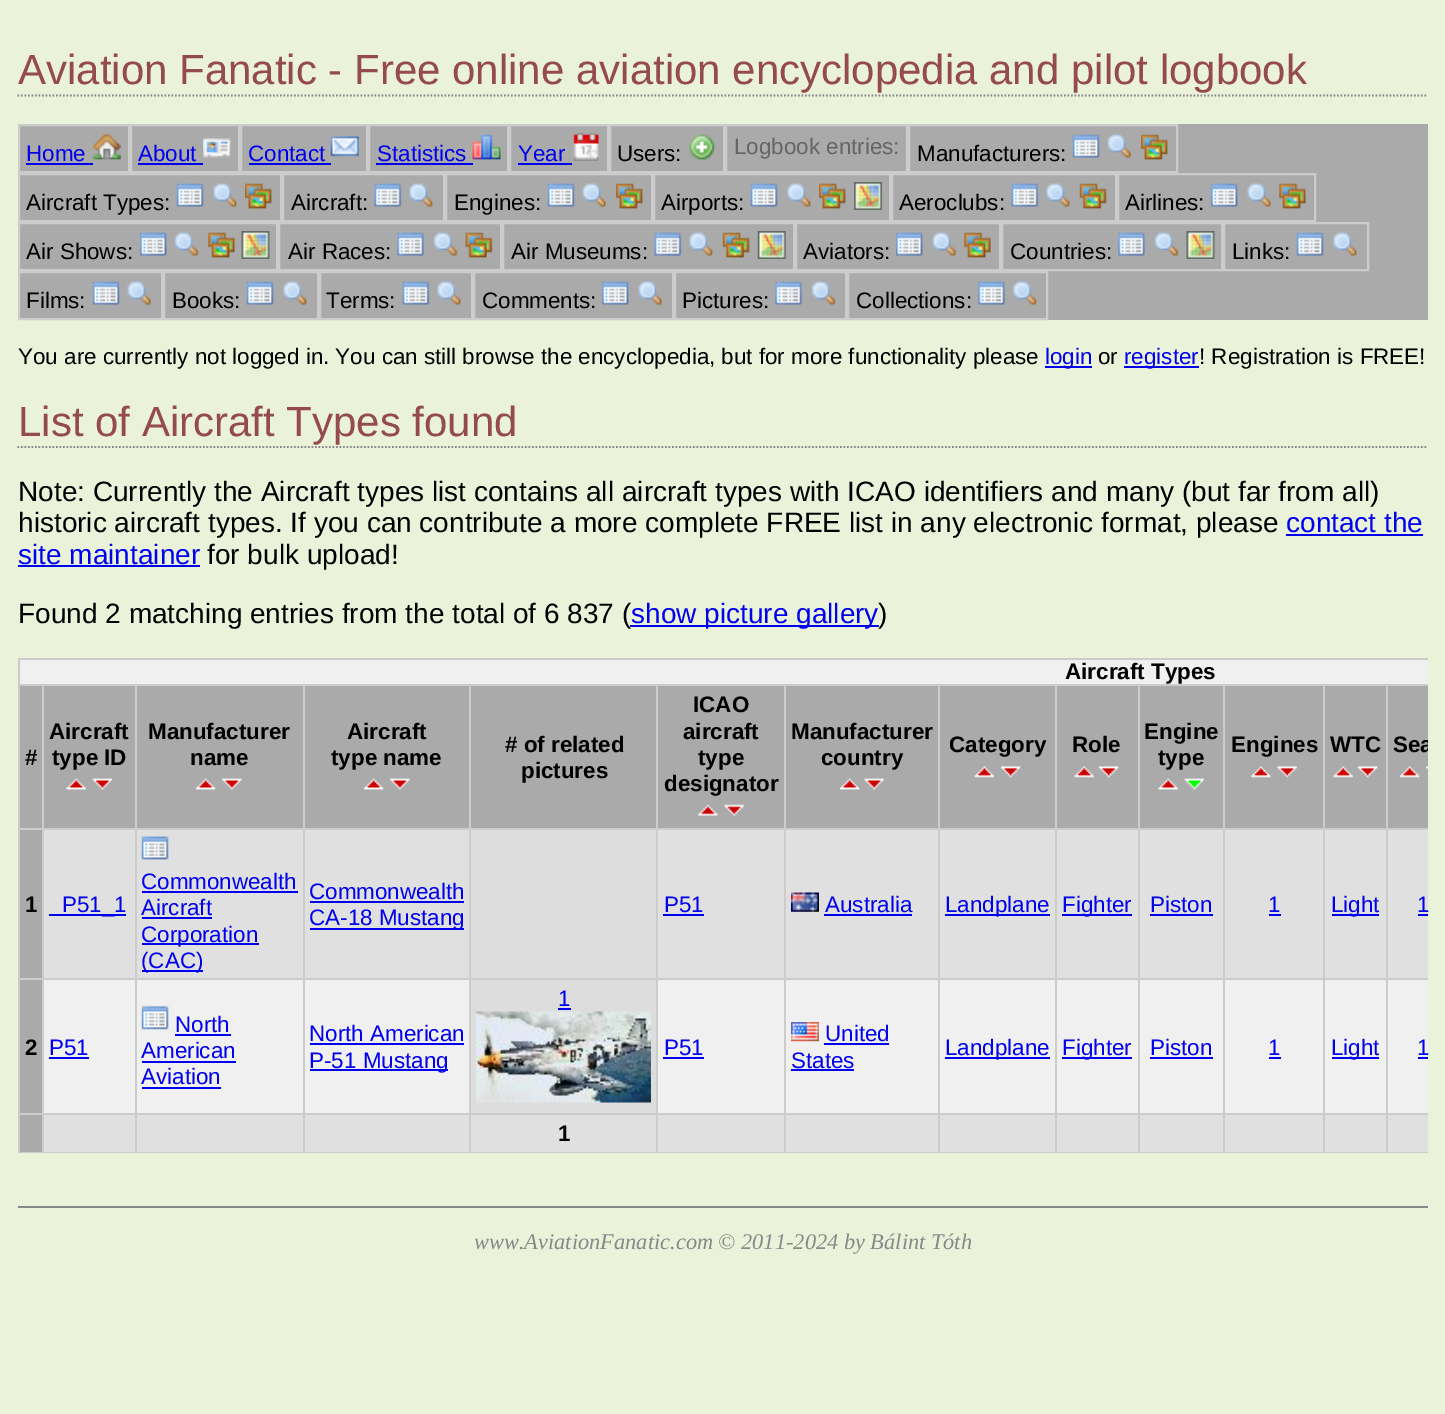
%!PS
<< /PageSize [1445 1414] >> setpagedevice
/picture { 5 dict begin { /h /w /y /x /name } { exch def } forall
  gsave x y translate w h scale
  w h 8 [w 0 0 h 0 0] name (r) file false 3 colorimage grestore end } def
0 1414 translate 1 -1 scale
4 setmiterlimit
0.918 0.953 0.855 setrgbcolor
0 0 1445 1414 rectfill
0.533 setgray
1.8 setlinewidth
[1.75 1.75] 0 setdash
newpath 17.5 95.5 moveto 1428 95.5 lineto stroke
/LiberationSans-Regular [42 0 0 -42 0 0] selectfont
0.584 0.294 0.294 setrgbcolor
18 84 moveto (Aviation Fanatic - Free online aviation encyclopedia and pilot logbook) show
0.667 setgray
20 124 1408 196 rectfill
0.8 setgray
2 setlinewidth
[] 0 setdash
19 125 110 47 rectstroke
/LiberationSans-Regular [22.4 0 0 -22.4 0 0] selectfont
0 0 0.933 setrgbcolor
26 161 moveto (Home) show
26 163 67 2 rectfill
(img1.rgb) 92 133 29 27 picture
0.8 setgray
131 125 108 47 rectstroke
0 0 0.933 setrgbcolor
138 161 moveto (About) show
138 163 65 2 rectfill
(img2.rgb) 203 138 28 20 picture
0.8 setgray
241 125 126 47 rectstroke
0 0 0.933 setrgbcolor
248 161 moveto (Contact) show
249 163 82 2 rectfill
(img3.rgb) 330 136 29 21 picture
0.8 setgray
369 125 139 47 rectstroke
0 0 0.933 setrgbcolor
377 161 moveto (Statistics) show
376 163 97 2 rectfill
(img4.rgb) 472 134 29 26 picture
0.8 setgray
510 125 98 47 rectstroke
0 0 0.933 setrgbcolor
518 161 moveto (Year) show
518 163 54 2 rectfill
(img5.rgb) 573 133 26 28 picture
0.8 setgray
610 125 114 47 rectstroke
0 setgray
617 161 moveto (Users:) show
(img6.rgb) 689 134 26 26 picture
0.8 setgray
726 125 181 47 rectstroke
0.4 setgray
734 154 moveto (Logbook entries:) show
0.8 setgray
909 125 268 47 rectstroke
0 setgray
917 161 moveto (Manufacturers:) show
(img7.rgb) 1072 134 28 24 picture
(img8.rgb) 1107 134 24 26 picture
(img9.rgb) 1141 134 27 26 picture
0.8 setgray
19 174 262 47 rectstroke
0 setgray
26 210 moveto (Aircraft Types:) show
(img7.rgb) 176 183 28 24 picture
(img10.rgb) 213 183 24 26 picture
(img11.rgb) 245 183 27 26 picture
0.8 setgray
283 174 161 47 rectstroke
0 setgray
291 210 moveto (Aircraft:) show
(img12.rgb) 374 183 28 24 picture
(img13.rgb) 409 183 24 26 picture
0.8 setgray
446 174 206 47 rectstroke
0 setgray
454 210 moveto (Engines:) show
(img14.rgb) 547 183 28 24 picture
(img8.rgb) 582 183 24 26 picture
(img11.rgb) 616 183 27 26 picture
0.8 setgray
654 174 236 47 rectstroke
0 setgray
661 210 moveto (Airports:) show
(img14.rgb) 750 183 28 24 picture
(img13.rgb) 787 183 24 26 picture
(img9.rgb) 819 183 27 26 picture
(img15.rgb) 854 182 28 28 picture
0.8 setgray
892 174 224 47 rectstroke
0 setgray
899 210 moveto (Aeroclubs:) show
(img16.rgb) 1011 183 28 24 picture
(img13.rgb) 1046 183 24 26 picture
(img17.rgb) 1079 183 28 26 picture
0.8 setgray
1118 174 197 47 rectstroke
0 setgray
1125 210 moveto (Airlines:) show
(img18.rgb) 1211 183 27 24 picture
(img19.rgb) 1247 183 24 26 picture
(img20.rgb) 1279 183 27 26 picture
0.8 setgray
19 223 258 47 rectstroke
0 setgray
26 259 moveto (Air Shows:) show
(img18.rgb) 140 232 27 24 picture
(img21.rgb) 174 232 25 26 picture
(img20.rgb) 208 232 27 26 picture
(img22.rgb) 241 231 29 28 picture
0.8 setgray
279 223 222 47 rectstroke
0 setgray
288 259 moveto (Air Races:) show
(img23.rgb) 397 232 27 24 picture
(img24.rgb) 433 232 25 26 picture
(img25.rgb) 465 232 28 26 picture
0.8 setgray
503 223 291 47 rectstroke
0 setgray
511 259 moveto (Air Museums:) show
(img16.rgb) 654 232 28 24 picture
(img13.rgb) 689 232 24 26 picture
(img17.rgb) 722 232 28 26 picture
(img26.rgb) 757 231 29 28 picture
0.8 setgray
796 223 204 47 rectstroke
0 setgray
803 259 moveto (Aviators:) show
(img27.rgb) 896 232 27 24 picture
(img8.rgb) 932 232 24 26 picture
(img20.rgb) 964 232 27 26 picture
0.8 setgray
1002 223 220 47 rectstroke
0 setgray
1010 259 moveto (Countries:) show
(img23.rgb) 1118 232 27 24 picture
(img24.rgb) 1154 232 25 26 picture
(img22.rgb) 1186 231 29 28 picture
0.8 setgray
1224 223 144 47 rectstroke
0 setgray
1232 259 moveto (Links:) show
(img14.rgb) 1296 232 28 24 picture
(img10.rgb) 1333 232 24 26 picture
0.8 setgray
19 272 143 47 rectstroke
0 setgray
26 308 moveto (Films:) show
(img7.rgb) 92 281 28 24 picture
(img19.rgb) 127 281 24 26 picture
0.8 setgray
164 272 154 47 rectstroke
0 setgray
172 308 moveto (Books:) show
(img14.rgb) 246 281 28 24 picture
(img13.rgb) 283 281 24 26 picture
0.8 setgray
320 272 152 47 rectstroke
0 setgray
326 308 moveto (Terms:) show
(img12.rgb) 402 281 28 24 picture
(img13.rgb) 437 281 24 26 picture
0.8 setgray
474 272 199 47 rectstroke
0 setgray
482 308 moveto (Comments:) show
(img18.rgb) 602 281 27 24 picture
(img8.rgb) 638 281 24 26 picture
0.8 setgray
675 272 171 47 rectstroke
0 setgray
682 308 moveto (Pictures:) show
(img23.rgb) 775 281 27 24 picture
(img21.rgb) 811 281 25 26 picture
0.8 setgray
848 272 199 47 rectstroke
0 setgray
856 308 moveto (Collections:) show
(img23.rgb) 978 281 27 24 picture
(img28.rgb) 1012 281 25 26 picture
18 364 moveto (You are currently not logged in. You can still browse the encyclopedia, but for more functionality please) show
0 0 0.933 setrgbcolor
1045 366 47 2 rectfill
1045 364 moveto (login) show
0 setgray
1098 364 moveto (or) show
0 0 0.933 setrgbcolor
1124 366 75 2 rectfill
1124 364 moveto (register) show
0 setgray
1199 364 moveto (! Registration is FREE!) show
0.533 setgray
1.8 setlinewidth
[1.75 1.75] 0 setdash
newpath 17.5 447 moveto 1428 447 lineto stroke
/LiberationSans-Regular [42 0 0 -42 0 0] selectfont
0.584 0.294 0.294 setrgbcolor
18 436 moveto (List of Aircraft Types found) show
/LiberationSans-Regular [28 0 0 -28 0 0] selectfont
0 setgray
18 501 moveto (Note: Currently the Aircraft types list contains all aircraft types with ICAO identifiers and many \(but far from all\)) show
18 532 moveto (historic aircraft types. If you can contribute a more complete FREE list in any electronic format, please) show
0 0 0.933 setrgbcolor
1286 532 moveto (contact the) show
1286 534 137 2 rectfill
18 564 moveto (site maintainer) show
18 565 182 2 rectfill
0 setgray
207 564 moveto (for bulk upload!) show
18 623 moveto (Found 2 matching entries from the total of 6 837 \() show
0 0 0.933 setrgbcolor
630 625 249 2 rectfill
631 623 moveto (show picture gallery) show
0 setgray
878 623 moveto (\)) show
0.941 setgray
20 660 1408 453 rectfill
0.8 setgray
18 658 1410 2 rectfill
18 658 2 495 rectfill
/LiberationSans-Bold [22.4 0 0 -22.4 0 0] selectfont
0 setgray
1065 679 moveto (Aircraft Types) show
0.667 setgray
44 686 91 142 rectfill
0.8 setgray
1386 684 42 2 rectfill
1386 828 42 2 rectfill
0.878 setgray
44 830 1384 148 rectfill
0.8 setgray
1386 978 42 2 rectfill
1386 1113 42 2 rectfill
0.878 setgray
44 1115 1384 37 rectfill
0.8 setgray
1386 1152 42 1 rectfill
1386 1113 2 40 rectfill
1323 1113 65 2 rectfill
1386 978 2 137 rectfill
1323 978 65 2 rectfill
1386 828 2 152 rectfill
1323 828 65 2 rectfill
1386 684 2 146 rectfill
1323 684 65 2 rectfill
1323 1152 65 1 rectfill
1323 1113 2 40 rectfill
1223 1113 102 2 rectfill
1323 978 2 137 rectfill
1223 978 102 2 rectfill
1323 828 2 152 rectfill
1223 828 102 2 rectfill
1323 684 2 146 rectfill
1223 684 102 2 rectfill
1223 1152 102 1 rectfill
1223 1113 2 40 rectfill
1138 1113 87 2 rectfill
1223 978 2 137 rectfill
1138 978 87 2 rectfill
1223 828 2 152 rectfill
1138 828 87 2 rectfill
1223 684 2 146 rectfill
1138 684 87 2 rectfill
1138 1152 87 1 rectfill
1138 1113 2 40 rectfill
1055 1113 84 2 rectfill
1138 978 2 137 rectfill
1055 978 84 2 rectfill
1138 828 2 152 rectfill
1055 828 84 2 rectfill
1138 684 2 146 rectfill
1055 684 84 2 rectfill
1055 1152 84 1 rectfill
1055 1113 2 40 rectfill
938 1113 119 2 rectfill
1055 978 2 137 rectfill
938 978 119 2 rectfill
1055 828 2 152 rectfill
938 828 119 2 rectfill
1055 684 2 146 rectfill
938 684 119 2 rectfill
938 1152 119 1 rectfill
938 1113 2 40 rectfill
784 1113 156 2 rectfill
938 978 2 137 rectfill
784 978 156 2 rectfill
938 828 2 152 rectfill
784 828 156 2 rectfill
938 684 2 146 rectfill
784 684 156 2 rectfill
784 1152 156 1 rectfill
784 1113 2 40 rectfill
656 1113 130 2 rectfill
784 978 2 137 rectfill
656 978 130 2 rectfill
784 828 2 152 rectfill
656 828 130 2 rectfill
784 684 2 146 rectfill
656 684 130 2 rectfill
656 1152 130 1 rectfill
656 1113 2 40 rectfill
469 1113 189 2 rectfill
656 978 2 137 rectfill
469 978 189 2 rectfill
656 828 2 152 rectfill
469 828 189 2 rectfill
656 684 2 146 rectfill
469 684 189 2 rectfill
469 1152 189 1 rectfill
469 1113 2 40 rectfill
303 1113 168 2 rectfill
469 978 2 137 rectfill
303 978 168 2 rectfill
469 828 2 152 rectfill
303 828 168 2 rectfill
469 684 2 146 rectfill
303 684 168 2 rectfill
303 1152 168 1 rectfill
303 1113 2 40 rectfill
135 1113 170 2 rectfill
303 978 2 137 rectfill
135 978 170 2 rectfill
303 828 2 152 rectfill
135 828 170 2 rectfill
303 684 2 146 rectfill
135 684 170 2 rectfill
135 1152 170 1 rectfill
135 1113 2 40 rectfill
42 1113 95 2 rectfill
135 978 2 137 rectfill
42 978 95 2 rectfill
135 828 2 152 rectfill
42 828 95 2 rectfill
135 684 2 146 rectfill
42 684 95 2 rectfill
42 1152 95 1 rectfill
42 1113 2 40 rectfill
18 1113 26 2 rectfill
42 978 2 137 rectfill
18 978 26 2 rectfill
42 828 2 152 rectfill
18 828 26 2 rectfill
42 684 2 146 rectfill
0 setgray
49 739 moveto (Aircraft) show
52 765 moveto (type ID) show
(img29.rgb) 66 778 20 12 picture
(img30.rgb) 92 778 20 12 picture
0.667 setgray
137 686 166 142 rectfill
0 setgray
148 739 moveto (Manufacturer) show
190 765 moveto (name) show
(img31.rgb) 196 778 20 12 picture
(img32.rgb) 222 778 20 12 picture
0.667 setgray
305 686 164 142 rectfill
0 setgray
347 739 moveto (Aircraft) show
331 765 moveto (type name) show
(img31.rgb) 364 778 20 12 picture
(img32.rgb) 390 778 20 12 picture
0.667 setgray
471 686 185 142 rectfill
0 setgray
505 752 moveto (# of related) show
521 778 moveto (pictures) show
0.667 setgray
658 686 126 142 rectfill
0 setgray
693 712 moveto (ICAO) show
683 739 moveto (aircraft) show
698 765 moveto (type) show
664 791 moveto (designator) show
(img33.rgb) 698 804 20 12 picture
(img34.rgb) 724 804 20 12 picture
0.667 setgray
786 686 152 142 rectfill
0 setgray
791 739 moveto (Manufacturer) show
821 765 moveto (country) show
(img31.rgb) 840 778 20 12 picture
(img35.rgb) 864 778 20 12 picture
0.667 setgray
940 686 115 142 rectfill
0 setgray
949 752 moveto (Category) show
(img36.rgb) 974 766 20 12 picture
(img37.rgb) 1001 766 20 12 picture
0.667 setgray
1057 686 81 142 rectfill
0 setgray
1072 752 moveto (Role) show
(img38.rgb) 1074 766 20 12 picture
(img39.rgb) 1099 766 20 12 picture
0.667 setgray
1140 686 83 142 rectfill
0 setgray
1144 739 moveto (Engine) show
1158 765 moveto (type) show
(img40.rgb) 1158 778 20 12 picture
(img41.rgb) 1184 778 20 12 picture
0.667 setgray
1225 686 98 142 rectfill
0 setgray
1231 752 moveto (Engines) show
(img42.rgb) 1251 766 20 12 picture
(img43.rgb) 1277 766 20 12 picture
0.667 setgray
1325 686 61 142 rectfill
0 setgray
1330 752 moveto (WTC) show
(img38.rgb) 1333 766 20 12 picture
(img39.rgb) 1358 766 20 12 picture
0.667 setgray
1388 686 40 142 rectfill
gsave
18 658 1410 495 rectclip
0 setgray
1393 752 moveto (Sea) show
grestore
(img44.rgb) 1400 766 20 12 picture
(img45.rgb) 1426 766 2 4 picture
20 686 22 142 rectfill
0.8 setgray
18 684 26 2 rectfill
0 setgray
25 765 moveto (#) show
0.667 setgray
20 830 22 148 rectfill
0 setgray
25 912 moveto (1) show
0 0 0.933 setrgbcolor
49 914 77 2 rectfill
/LiberationSans-Regular [22.4 0 0 -22.4 0 0] selectfont
62 912 moveto (P51_1) show
(img46.rgb) 141 836 28 24 picture
141 889 moveto (Commonwealth) show
142 891 156 2 rectfill
141 915 moveto (Aircraft) show
142 917 70 2 rectfill
142 943 117 2 rectfill
141 942 moveto (Corporation) show
142 970 61 2 rectfill
141 968 moveto (\(CAC\)) show
309 899 moveto (Commonwealth) show
310 901 154 2 rectfill
310 928 154 2 rectfill
309 925 moveto (CA-18 Mustang) show
0.867 setgray
471 830 185 148 rectfill
0 0 0.933 setrgbcolor
664 912 moveto (P51) show
663 914 41 2 rectfill
(img47.rgb) 791 892 28 20 picture
825 912 moveto (Australia) show
824 914 88 2 rectfill
945 914 105 2 rectfill
945 912 moveto (Landplane) show
1062 914 70 2 rectfill
1062 912 moveto (Fighter) show
1150 912 moveto (Piston) show
1150 914 63 2 rectfill
1268 912 moveto (1) show
1269 914 12 2 rectfill
1332 914 47 2 rectfill
1331 912 moveto (Light) show
1417 912 moveto (1) show
1418 914 10 2 rectfill
0.867 setgray
471 980 185 133 rectfill
0 0 0.933 setrgbcolor
558 1006 moveto (1) show
558 1008 13 2 rectfill
(img48.rgb) 476 1011 175 92 picture
0.667 setgray
20 980 22 133 rectfill
/LiberationSans-Bold [22.4 0 0 -22.4 0 0] selectfont
0 setgray
25 1055 moveto (2) show
/LiberationSans-Regular [22.4 0 0 -22.4 0 0] selectfont
0 0 0.933 setrgbcolor
49 1055 moveto (P51) show
49 1057 40 2 rectfill
(img49.rgb) 141 1005 28 25 picture
175 1032 moveto (North) show
175 1034 56 2 rectfill
141 1058 moveto (American) show
142 1061 94 2 rectfill
141 1084 moveto (Aviation) show
142 1087 79 2 rectfill
309 1041 moveto (North American) show
310 1043 154 2 rectfill
310 1069 138 2 rectfill
309 1068 moveto (P-51 Mustang) show
664 1055 moveto (P51) show
663 1057 41 2 rectfill
(img50.rgb) 791 1022 28 20 picture
825 1041 moveto (United) show
824 1043 65 2 rectfill
791 1068 moveto (States) show
791 1069 63 2 rectfill
945 1057 105 2 rectfill
945 1055 moveto (Landplane) show
1062 1057 70 2 rectfill
1062 1055 moveto (Fighter) show
1150 1055 moveto (Piston) show
1150 1057 63 2 rectfill
1268 1055 moveto (1) show
1269 1057 12 2 rectfill
1332 1057 47 2 rectfill
1331 1055 moveto (Light) show
1417 1055 moveto (1) show
1418 1057 10 2 rectfill
0.667 setgray
20 1115 22 37 rectfill
0.8 setgray
18 1152 26 1 rectfill
/LiberationSans-Bold [22.4 0 0 -22.4 0 0] selectfont
0 setgray
558 1141 moveto (1) show
0.533 setgray
18 1206 1410 2 rectfill
/LiberationSerif-Italic [22.4 0 0 -22.4 0 0] selectfont
474 1249 moveto (www.AviationFanatic.com © 2011-2024 by Bálint Tóth) show
showpage
